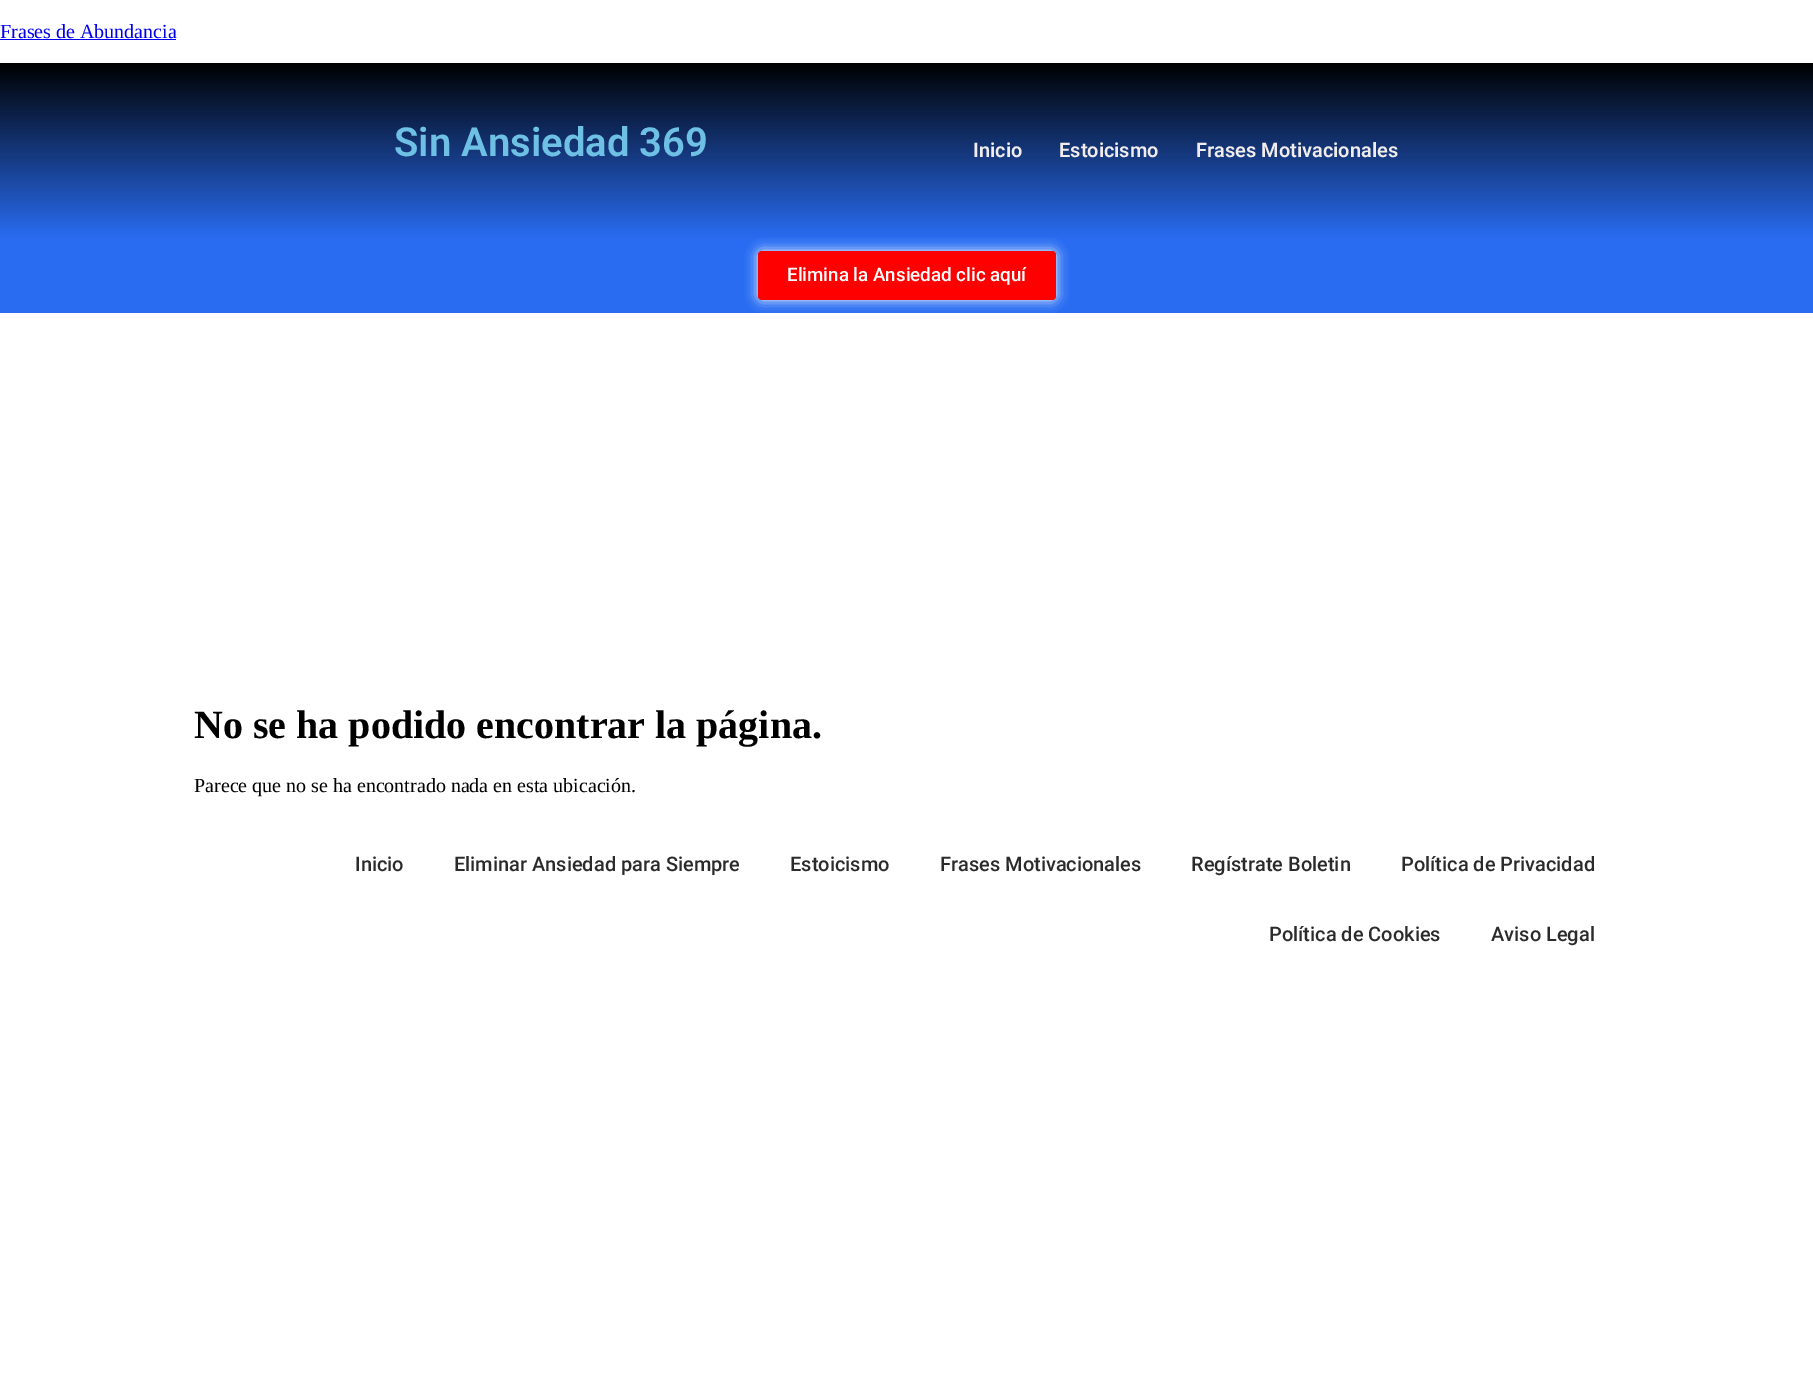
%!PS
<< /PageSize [1813 1386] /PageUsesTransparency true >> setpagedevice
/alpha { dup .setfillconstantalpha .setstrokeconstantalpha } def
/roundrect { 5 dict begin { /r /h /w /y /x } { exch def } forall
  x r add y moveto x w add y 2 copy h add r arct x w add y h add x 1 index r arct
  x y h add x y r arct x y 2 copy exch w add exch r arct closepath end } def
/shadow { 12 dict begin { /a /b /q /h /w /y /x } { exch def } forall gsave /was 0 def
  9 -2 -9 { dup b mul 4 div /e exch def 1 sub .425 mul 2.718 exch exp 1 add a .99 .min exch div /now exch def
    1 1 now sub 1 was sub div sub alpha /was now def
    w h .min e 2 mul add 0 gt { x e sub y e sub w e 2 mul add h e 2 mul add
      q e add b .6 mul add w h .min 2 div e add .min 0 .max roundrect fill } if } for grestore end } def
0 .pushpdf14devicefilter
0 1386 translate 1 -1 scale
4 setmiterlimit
1 setgray
0 0 1813 1386 rectfill
/LiberationSerif-Regular [20 0 0 -20 0 0] selectfont
0 0 0.933 setrgbcolor
0 38 moveto (Frases de Abundancia) show
0 39 176 1 rectfill
gsave newpath 0 63 moveto 1813 63 lineto 1813 239 lineto 0 239 lineto closepath clip newpath
<< /ShadingType 2 /ColorSpace /DeviceRGB /Coords [907 62 907 239] /Extend [true true] /Function << /FunctionType 2 /Domain [0 1] /C0 [0 0 0] /C1 [0.161 0.424 0.949] /N 1 >> >> shfill grestore
/Roboto-SemiBold [40 0 0 -40 0 0] selectfont
0.431 0.757 0.894 setrgbcolor
394 156 moveto (Sin Ansiedad 369) show
/Roboto-SemiBold [20 0 0 -20 0 0] selectfont
0.949 0.929 0.929 setrgbcolor
973 157 moveto (Inicio) show
1059 157 moveto (Estoicismo) show
1196 157 moveto (Frases Motivacionales) show
0.161 0.424 0.949 setrgbcolor
0 239 1813 74 rectfill
1 setgray
758 251 298 49 4 6 1 shadow
1 0 0 setrgbcolor
758 251 298 49 4 roundrect fill
/Roboto-Medium [18.75 0 0 -18.75 0 0] selectfont
1 setgray
787 281 moveto (Elimina la Ansiedad clic aquí) show
/LiberationSerif-Bold [40 0 0 -40 0 0] selectfont
0 setgray
194 738 moveto (No se ha podido encontrar la página.) show
/LiberationSerif-Regular [20 0 0 -20 0 0] selectfont
194 792 moveto (Parece que no se ha encontrado nada en esta ubicación.) show
/Roboto-Medium [20 0 0 -20 0 0] selectfont
0.169 setgray
355 871 moveto (Inicio) show
454 871 moveto (Eliminar Ansiedad para Siempre) show
790 871 moveto (Estoicismo) show
940 871 moveto (Frases Motivacionales) show
1191 871 moveto (Regístrate Boletin) show
1401 871 moveto (Política de Privacidad) show
1269 941 moveto (Política de Cookies) show
1491 941 moveto (Aviso Legal) show
.poppdf14devicefilter showpage
